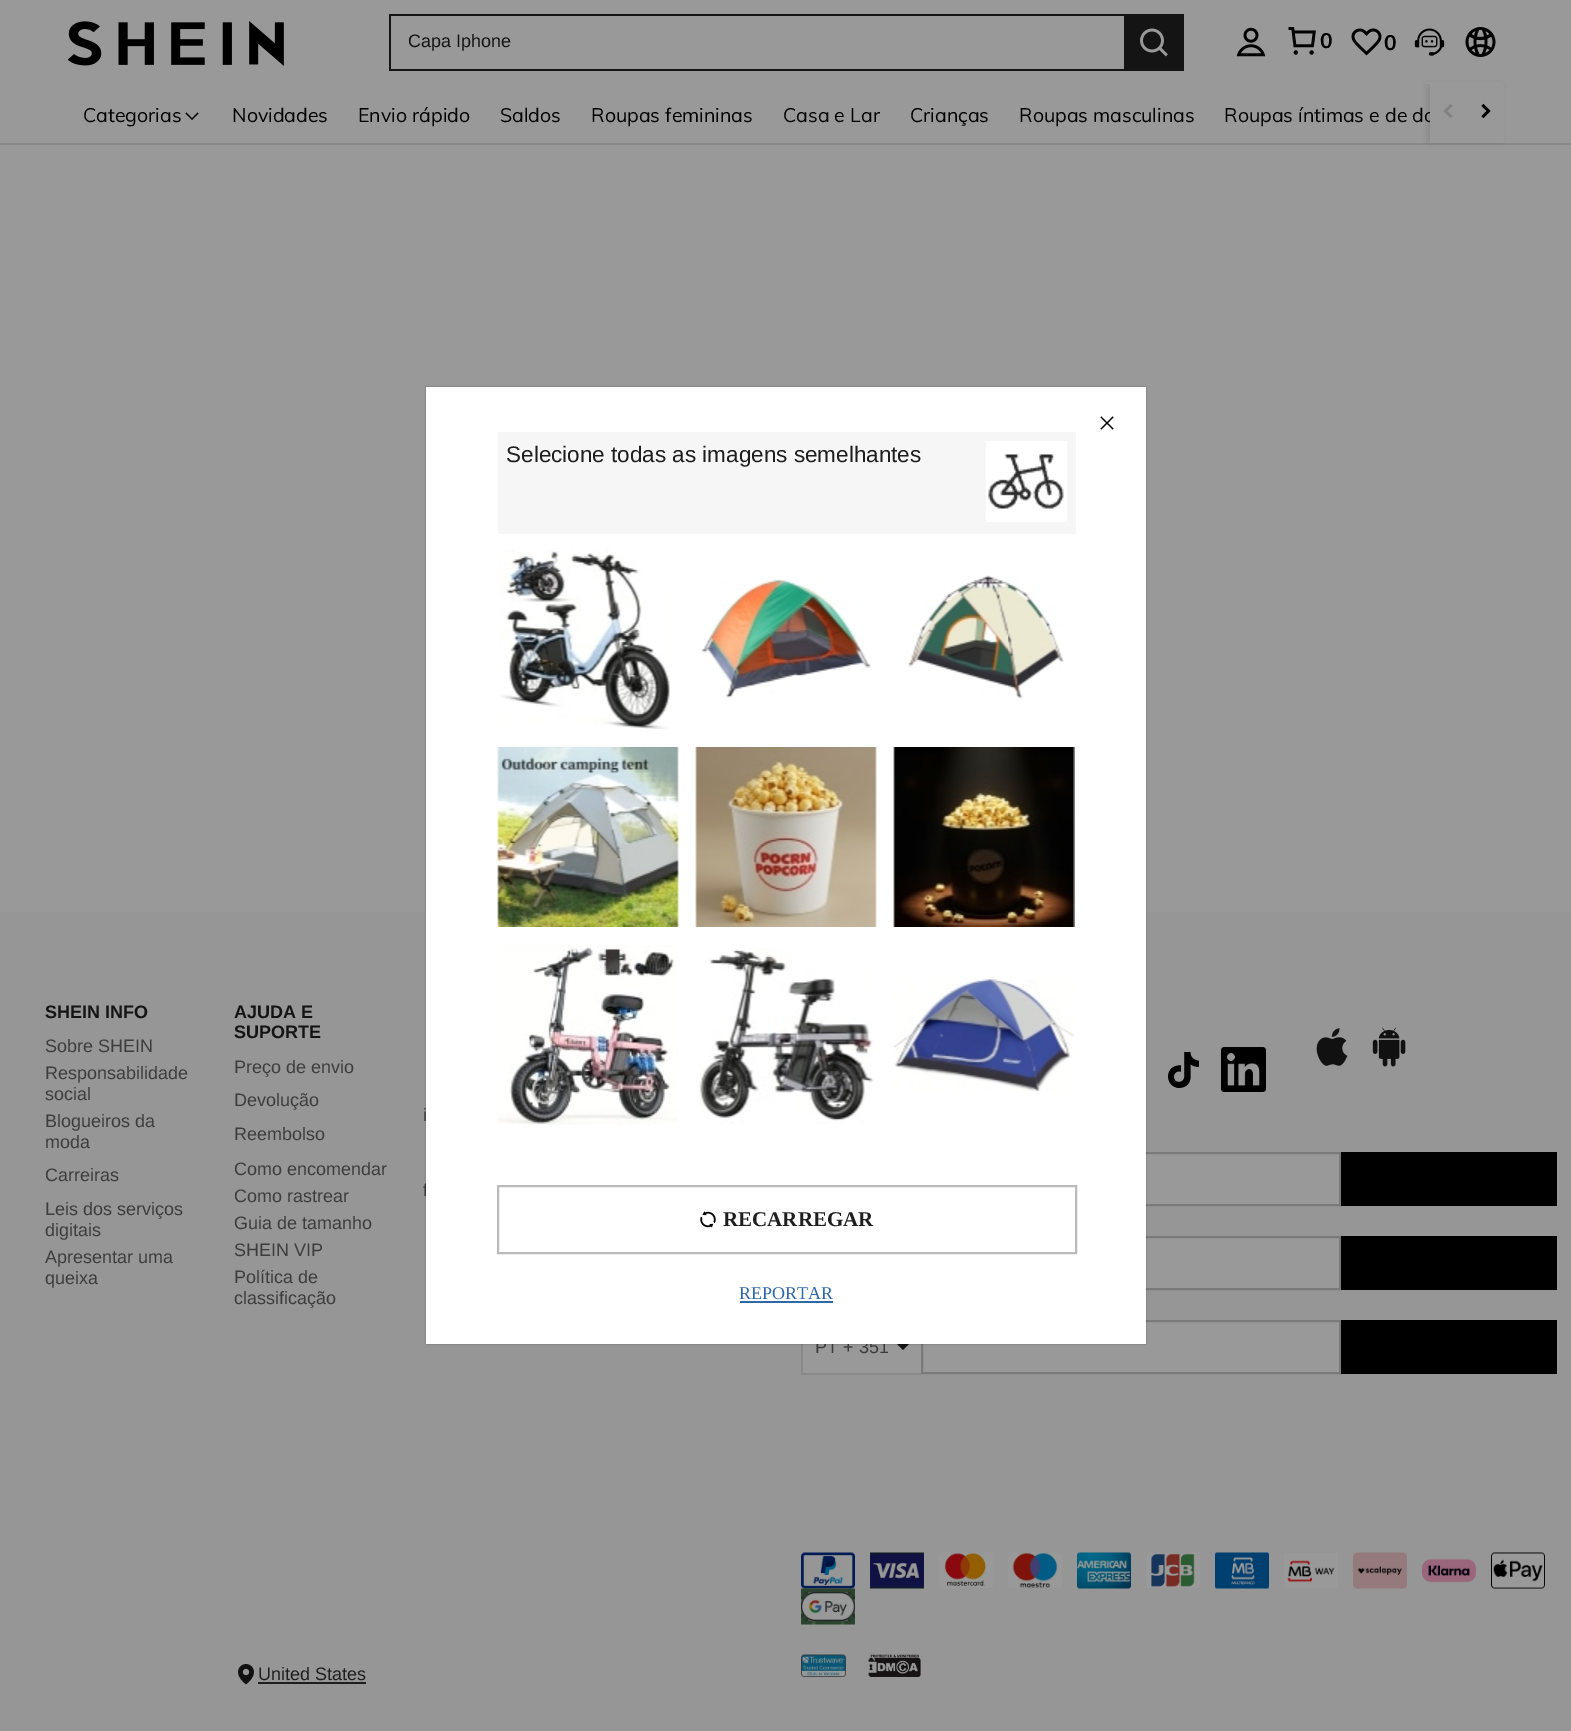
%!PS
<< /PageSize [1571 1731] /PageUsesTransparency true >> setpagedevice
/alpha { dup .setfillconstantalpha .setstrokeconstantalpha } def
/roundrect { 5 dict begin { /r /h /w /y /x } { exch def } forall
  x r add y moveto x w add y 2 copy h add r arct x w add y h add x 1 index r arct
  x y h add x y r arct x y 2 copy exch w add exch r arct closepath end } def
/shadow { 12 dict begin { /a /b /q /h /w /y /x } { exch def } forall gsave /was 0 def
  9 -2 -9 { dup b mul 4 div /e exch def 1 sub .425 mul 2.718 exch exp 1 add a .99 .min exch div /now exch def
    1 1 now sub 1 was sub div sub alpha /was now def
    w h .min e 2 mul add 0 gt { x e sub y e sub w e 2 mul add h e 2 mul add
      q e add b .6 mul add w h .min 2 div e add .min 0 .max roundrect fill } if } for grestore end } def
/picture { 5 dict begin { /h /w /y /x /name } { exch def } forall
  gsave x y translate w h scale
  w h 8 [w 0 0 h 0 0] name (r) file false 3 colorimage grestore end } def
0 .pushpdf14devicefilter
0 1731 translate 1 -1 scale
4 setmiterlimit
0.6 setgray
0 0 1571 1731 rectfill
0.537 setgray
0 143 1571 2 rectfill
0 setgray
1427 84 75 59 0 2 0.08 shadow
0.6 setgray
1427 82 75 2 rectfill
(img1.rgb) 68 21 216 45 picture
0.078 setgray
389 14 735 2 rectfill
389 69 735 2 rectfill
389 14 2 57 rectfill
/LiberationSans-Regular [18 0 0 -18 0 0] selectfont
408 47 moveto (Capa Iphone) show
1124 14 60 57 rectfill
(img2.rgb) 1140 28 28 29 picture
(img3.rgb) 1236 27 30 30 picture
(img4.rgb) 1288 27 28 28 picture
/Muli-Bold [21 0 0 -21 0 0] selectfont
0 setgray
1320 48 moveto (0) show
(img5.rgb) 1351 28 31 28 picture
1384 50 moveto (0) show
(img6.rgb) 1414 28 31 28 picture
(img7.rgb) 1465 27 31 30 picture
/Muli-Regular [19.5 0 0 -19.5 0 0] selectfont
83 122 moveto (Categorias) show
(img8.rgb) 185 112 14 8 picture
232 122 moveto (Novidades) show
358 122 moveto (Envio rápido) show
500 122 moveto (Saldos) show
591 122 moveto (Roupas femininas) show
783 122 moveto (Casa e Lar) show
910 122 moveto (Crianças) show
1019 122 moveto (Roupas masculinas) show
1224 122 moveto (Roupas íntimas e de do) show
0.6 setgray
1430 84 74 59 rectfill
(img9.rgb) 1443 104 10 14 picture
(img10.rgb) 1481 103 10 16 picture
0.588 setgray
0 912 1571 819 rectfill
/LiberationSans-Bold [18 0 0 -18 0 0] selectfont
0.078 setgray
45 1018 moveto (SHEIN INFO) show
/LiberationSans-Regular [18 0 0 -18 0 0] selectfont
0.239 setgray
45 1052 moveto (Sobre SHEIN) show
45 1079 moveto (Responsabilidade) show
45 1100 moveto (social) show
45 1127 moveto (Blogueiros da) show
45 1148 moveto (moda) show
45 1181 moveto (Carreiras) show
45 1215 moveto (Leis dos serviços) show
45 1236 moveto (digitais) show
45 1263 moveto (Apresentar uma) show
45 1284 moveto (queixa) show
/LiberationSans-Bold [18 0 0 -18 0 0] selectfont
0.078 setgray
234 1018 moveto (AJUDA E) show
234 1038 moveto (SUPORTE) show
/LiberationSans-Regular [18 0 0 -18 0 0] selectfont
0.239 setgray
234 1073 moveto (Preço de envio) show
234 1106 moveto (Devolução) show
234 1140 moveto (Reembolso) show
234 1175 moveto (Como encomendar) show
234 1202 moveto (Como rastrear) show
234 1229 moveto (Guia de tamanho) show
234 1256 moveto (SHEIN VIP) show
234 1283 moveto (Política de) show
234 1304 moveto (classificação) show
423 1121 moveto (i) show
423 1196 moveto (f) show
(img11.rgb) 1168 1052 31 36 picture
(img12.rgb) 1221 1047 45 45 picture
(img13.rgb) 1316 1028 32 38 picture
(img14.rgb) 1372 1027 34 40 picture
0.6 setgray
1146 1154 193 50 rectfill
0.478 setgray
2 setlinewidth
802 1153 538 52 rectstroke
0 setgray
1341 1152 216 54 rectfill
0.6 setgray
1146 1238 193 50 rectfill
0.478 setgray
922 1237 418 52 rectstroke
0 setgray
1341 1236 216 54 rectfill
0.6 setgray
803 1344 118 29 rectfill
0.537 setgray
801 1373 120 2 rectfill
801 1344 2 30 rectfill
0.239 setgray
815 1353 moveto (PT + 351) show
0.078 setgray
newpath 897 1344 moveto 909 1344 lineto 903 1350 lineto closepath fill
0.6 setgray
newpath 922 1321 moveto 1340 1321 lineto 1340 1373 lineto 922 1373 lineto closepath gsave fill grestore
0.478 setgray
stroke
0 setgray
1341 1320 216 54 rectfill
(img15.rgb) 801 1552 54 37 picture
(img16.rgb) 870 1552 54 37 picture
(img17.rgb) 939 1552 54 36 picture
(img18.rgb) 1008 1552 54 36 picture
(img19.rgb) 1077 1552 54 37 picture
(img20.rgb) 1146 1553 54 35 picture
(img21.rgb) 1215 1552 54 37 picture
(img22.rgb) 1284 1553 54 35 picture
(img23.rgb) 1353 1552 54 37 picture
(img24.rgb) 1422 1558 54 25 picture
(img25.rgb) 1491 1552 54 37 picture
(img26.rgb) 801 1588 54 37 picture
(img27.rgb) 238 1664 16 21 picture
0.118 setgray
258 1680 moveto (United States) show
258 1682 108 2 rectfill
(img28.rgb) 801 1654 45 23 picture
(img29.rgb) 868 1654 53 23 picture
0 setgray
426 387 720 957 0 1 0.3 shadow
1 setgray
426 387 720 957 rectfill
(img30.rgb) 1100 416 14 14 picture
0.965 setgray
498 432 578 102 rectfill
/LiberationSans-Regular [22.5 0 0 -22.5 0 0] selectfont
0.118 setgray
506 462 moveto (Selecione todas as imagens semelhantes) show
1 setgray
986 441 81 81 rectfill
(img31.rgb) 988 454 76 55 picture
(img32.rgb) 499 549 171 180 picture
(img33.rgb) 701 578 170 120 picture
(img34.rgb) 908 575 156 123 picture
(img35.rgb) 497 747 182 180 picture
(img36.rgb) 695 747 182 180 picture
(img37.rgb) 893 747 182 180 picture
(img38.rgb) 498 945 180 180 picture
(img39.rgb) 699 948 175 176 picture
(img40.rgb) 893 979 182 113 picture
0.733 setgray
498 1186 578 67 rectstroke
(img41.rgb) 700 1211 16 17 picture
/LiberationSerif-Bold [21 0 0 -21 0 0] selectfont
0.118 setgray
723 1226 moveto (RECARREGAR) show
/LiberationSerif-Regular [18 0 0 -18 0 0] selectfont
0.176 0.408 0.659 setrgbcolor
739 1299 moveto (REPORTAR) show
740 1301 93 2 rectfill
.poppdf14devicefilter showpage
